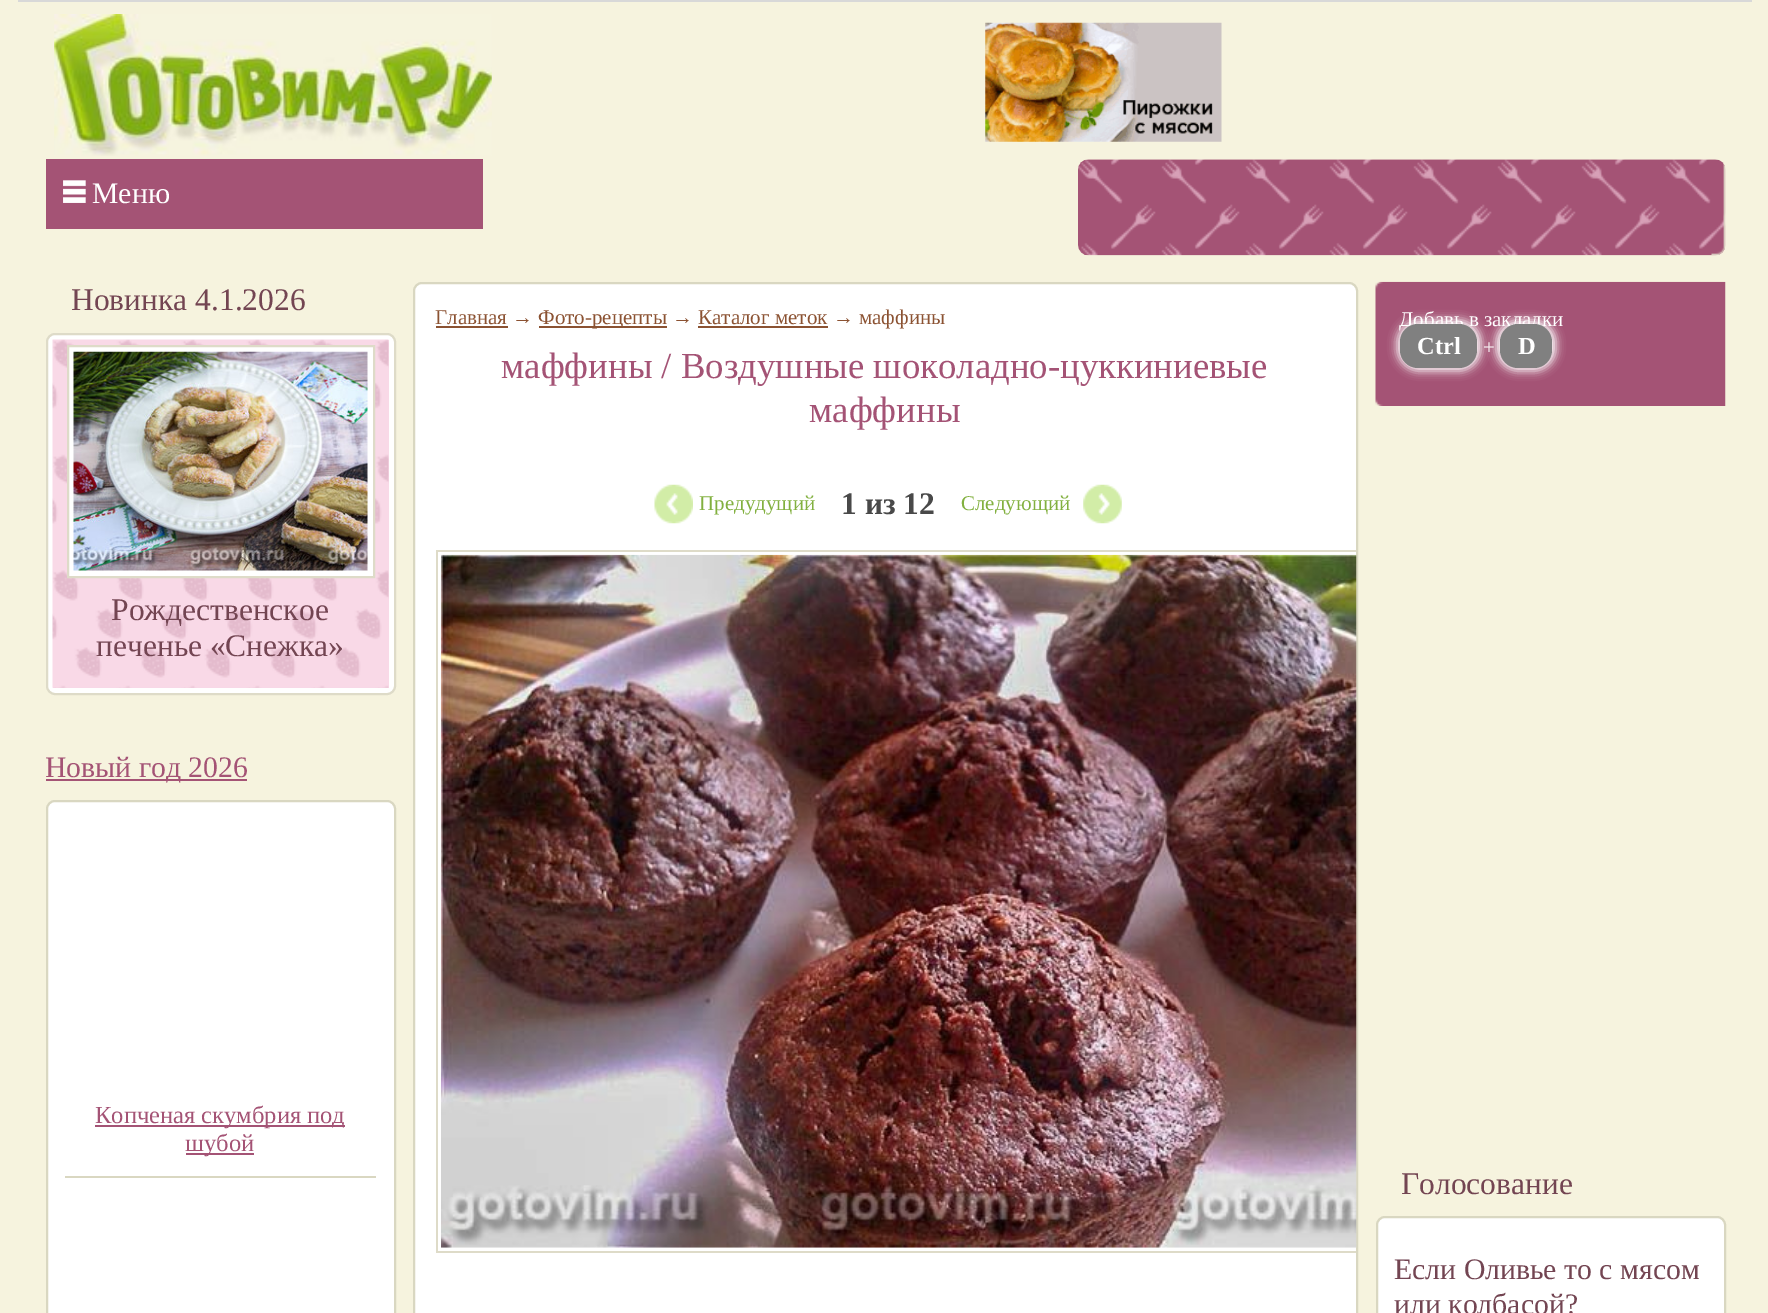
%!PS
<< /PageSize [1768 1313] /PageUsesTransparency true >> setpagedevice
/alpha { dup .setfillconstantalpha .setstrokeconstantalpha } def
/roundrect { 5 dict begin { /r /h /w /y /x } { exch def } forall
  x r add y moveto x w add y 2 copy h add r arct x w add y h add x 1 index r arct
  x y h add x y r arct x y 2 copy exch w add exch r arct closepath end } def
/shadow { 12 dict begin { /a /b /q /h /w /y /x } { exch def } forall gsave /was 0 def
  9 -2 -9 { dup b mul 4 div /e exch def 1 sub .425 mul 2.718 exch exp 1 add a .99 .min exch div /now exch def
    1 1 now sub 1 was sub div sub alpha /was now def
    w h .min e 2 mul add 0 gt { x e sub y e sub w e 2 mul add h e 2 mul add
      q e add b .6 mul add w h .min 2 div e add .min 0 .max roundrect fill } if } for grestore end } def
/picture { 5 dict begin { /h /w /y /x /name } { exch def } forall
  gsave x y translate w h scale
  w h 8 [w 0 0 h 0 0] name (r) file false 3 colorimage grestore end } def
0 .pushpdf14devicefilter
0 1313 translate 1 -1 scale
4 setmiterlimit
0.965 0.953 0.871 setrgbcolor
0 0 1768 1313 rectfill
0.847 setgray
18 0 1734 2 rectfill
(img1.rgb) 54 14 438 142 picture
(img2.rgb) 985 22 237 120 picture
0.643 0.325 0.459 setrgbcolor
46 159 437 70 rectfill
(img3.rgb) 63 180 23 23 picture
/LiberationSerif-Regular [29.75 0 0 -29.75 0 0] selectfont
1 setgray
92 203 moveto (Меню) show
(img4.rgb) 1078 159 648 97 picture
(img5.rgb) 1711 164 14 91 picture
/LiberationSerif-Regular [31.5 0 0 -31.5 0 0] selectfont
0.451 0.271 0.322 setrgbcolor
71 310 moveto (Новинка 4.1.2026) show
1 setgray
47 334 348 360 8 roundrect gsave fill grestore
0.871 0.859 0.784 setrgbcolor
2 setlinewidth
stroke
0.976 0.851 0.906 setrgbcolor
53 340 336 348 rectfill
(img6.rgb) 52 339 337 349 picture
1 setgray
newpath 68 346 moveto 374 346 lineto 374 577 lineto 68 577 lineto closepath gsave fill grestore
0.871 0.859 0.784 setrgbcolor
stroke
(img7.rgb) 73 351 295 220 picture
0.451 0.271 0.322 setrgbcolor
111 620 moveto (Рождественское) show
96 656 moveto (печенье «Снежка») show
0.643 0.325 0.459 setrgbcolor
46 779 201 2 rectfill
gsave
46 282 1680 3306 rectclip
/LiberationSerif-Regular [29.75 0 0 -29.75 0 0] selectfont
45 777 moveto (Новый год 2026) show
grestore
1 setgray
47 801 348 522 8 roundrect gsave fill grestore
0.851 0.843 0.757 setrgbcolor
stroke
65 1176 311 2 rectfill
0.643 0.325 0.459 setrgbcolor
95 1125 250 2 rectfill
/LiberationSerif-Regular [24.5 0 0 -24.5 0 0] selectfont
95 1123 moveto (Копченая скумбрия под) show
186 1153 68 2 rectfill
185 1151 moveto (шубой) show
1 setgray
414 283 943 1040 8 roundrect gsave fill grestore
0.851 0.843 0.757 setrgbcolor
stroke
/LiberationSerif-Regular [21 0 0 -21 0 0] selectfont
0.545 0.322 0.196 setrgbcolor
435 324 moveto (Главная →) show
436 326 72 2 rectfill
539 326 128 2 rectfill
538 324 moveto (Фото-рецепты → Каталог меток → маффины) show
698 326 130 2 rectfill
/LiberationSerif-Regular [36.75 0 0 -36.75 0 0] selectfont
0.643 0.325 0.459 setrgbcolor
501 378 moveto (маффины / Воздушные шоколадно-цуккиниевые) show
809 422 moveto (маффины) show
(img8.rgb) 654 484 39 40 picture
/LiberationSerif-Regular [21 0 0 -21 0 0] selectfont
0.51 0.69 0.247 setrgbcolor
699 510 moveto (Предудущий) show
/LiberationSerif-Bold [31.5 0 0 -31.5 0 0] selectfont
0.286 setgray
841 514 moveto (1 из 12) show
/LiberationSerif-Regular [21 0 0 -21 0 0] selectfont
0.51 0.69 0.247 setrgbcolor
961 510 moveto (Следующий) show
(img9.rgb) 1083 484 39 40 picture
0.871 0.859 0.784 setrgbcolor
newpath 436 550 moveto 436 1253 lineto 1356 1253 lineto 1356 1251 lineto 438 1251 lineto 438 552 lineto 1356 552 lineto 1356 550 lineto closepath fill
(img10.rgb) 441 554 916 694 picture
(img11.rgb) 1375 281 351 125 picture
1 setgray
1399 326 moveto (Добавь в закладки) show
1397 320 84 51 21 4.5 1 shadow
0.502 setgray
1400 324 77 44 18 roundrect fill
/LiberationSerif-Bold [24.5 0 0 -24.5 0 0] selectfont
1 setgray
1417 354 moveto (Ctrl) show
/LiberationSerif-Regular [21 0 0 -21 0 0] selectfont
1483 354 moveto (+) show
1496 320 60 51 21 4.5 1 shadow
0.502 setgray
1500 324 52 44 18 roundrect fill
/LiberationSerif-Bold [24.5 0 0 -24.5 0 0] selectfont
1 setgray
1518 354 moveto (D) show
/LiberationSerif-Regular [31.5 0 0 -31.5 0 0] selectfont
0.451 0.271 0.322 setrgbcolor
1401 1194 moveto (Голосование) show
1 setgray
1377 1217 348 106 8 roundrect gsave fill grestore
0.851 0.843 0.757 setrgbcolor
stroke
/LiberationSerif-Regular [29.75 0 0 -29.75 0 0] selectfont
0.451 0.271 0.322 setrgbcolor
1394 1279 moveto (Если Оливье то с мясом) show
1394 1314 moveto (или колбасой?) show
.poppdf14devicefilter showpage
